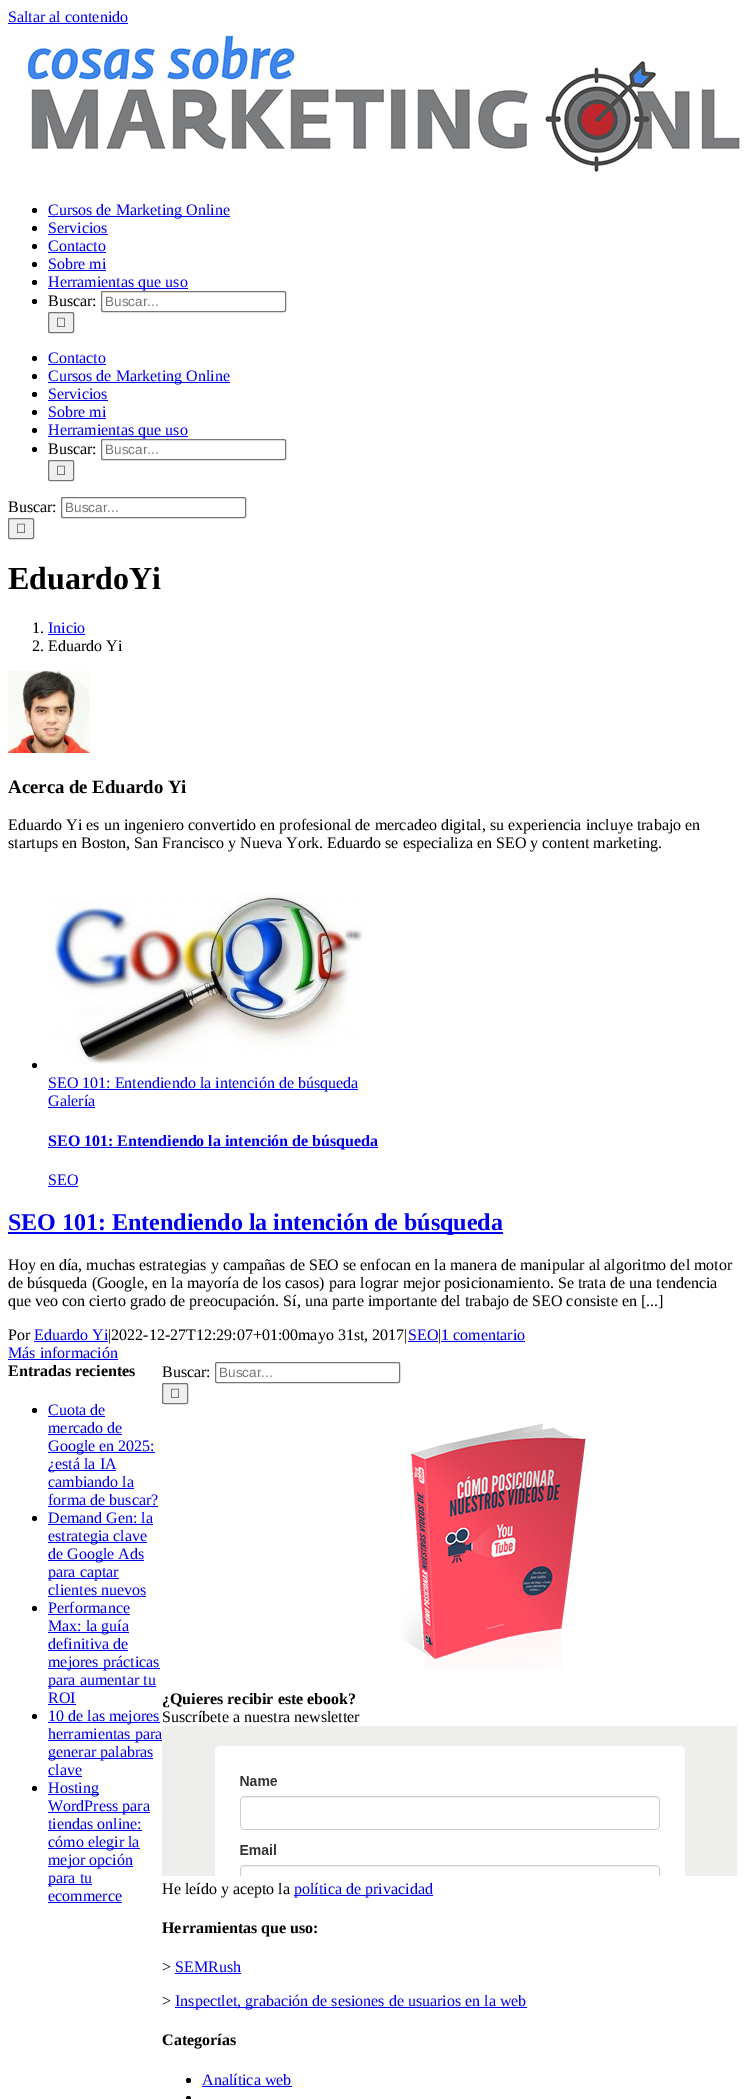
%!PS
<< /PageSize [745 2099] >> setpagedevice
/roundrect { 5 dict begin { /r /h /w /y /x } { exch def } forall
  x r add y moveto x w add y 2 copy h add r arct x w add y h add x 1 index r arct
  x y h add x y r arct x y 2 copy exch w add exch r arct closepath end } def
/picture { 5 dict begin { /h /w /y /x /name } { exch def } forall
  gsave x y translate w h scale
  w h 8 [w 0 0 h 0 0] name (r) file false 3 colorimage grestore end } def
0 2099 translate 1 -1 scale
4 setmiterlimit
1 setgray
0 0 745 2099 rectfill
/LiberationSerif-Regular [16 0 0 -16 0 0] selectfont
0 0 0.933 setrgbcolor
8 22 moveto (Saltar al contenido) show
8 23 120 1 rectfill
(img1.rgb) 24 34 716 140 picture
0 setgray
newpath 34.5 210.5 2.5 0 360 arc closepath fill
0 0 0.933 setrgbcolor
48 216 182 1 rectfill
48 215 moveto (Cursos de Marketing Online) show
0 setgray
newpath 34.5 228.5 2.5 0 360 arc closepath fill
0 0 0.933 setrgbcolor
48 233 moveto (Servicios) show
48 234 60 1 rectfill
0 setgray
newpath 34.5 246.5 2.5 0 360 arc closepath fill
0 0 0.933 setrgbcolor
48 251 moveto (Contacto) show
48 252 58 1 rectfill
0 setgray
newpath 34.5 264.5 2.5 0 360 arc closepath fill
0 0 0.933 setrgbcolor
48 269 moveto (Sobre mi) show
48 270 58 1 rectfill
0 setgray
newpath 34.5 282.5 2.5 0 360 arc closepath fill
0 0 0.933 setrgbcolor
48 288 140 1 rectfill
48 287 moveto (Herramientas que uso) show
0 setgray
newpath 34.5 301.5 2.5 0 360 arc closepath fill
48 306 moveto (Buscar:) show
0.463 setgray
101.5 291.5 184 20 1.5 roundrect stroke
/LiberationSans-Regular [13.5 0 0 -13.5 0 0] selectfont
0.459 setgray
105 306 moveto (Buscar...) show
0.937 setgray
48.5 312.5 25 20 1.5 roundrect gsave fill grestore
0.463 setgray
stroke
(img2.rgb) 57 317 8 10 picture
0 setgray
newpath 34.5 358.5 2.5 0 360 arc closepath fill
/LiberationSerif-Regular [16 0 0 -16 0 0] selectfont
0 0 0.933 setrgbcolor
48 363 moveto (Contacto) show
48 364 58 1 rectfill
0 setgray
newpath 34.5 376.5 2.5 0 360 arc closepath fill
0 0 0.933 setrgbcolor
48 382 182 1 rectfill
48 381 moveto (Cursos de Marketing Online) show
0 setgray
newpath 34.5 394.5 2.5 0 360 arc closepath fill
0 0 0.933 setrgbcolor
48 399 moveto (Servicios) show
48 400 60 1 rectfill
0 setgray
newpath 34.5 412.5 2.5 0 360 arc closepath fill
0 0 0.933 setrgbcolor
48 417 moveto (Sobre mi) show
48 418 58 1 rectfill
0 setgray
newpath 34.5 430.5 2.5 0 360 arc closepath fill
0 0 0.933 setrgbcolor
48 436 140 1 rectfill
48 435 moveto (Herramientas que uso) show
0 setgray
newpath 34.5 449.5 2.5 0 360 arc closepath fill
48 454 moveto (Buscar:) show
0.463 setgray
101.5 439.5 184 20 1.5 roundrect stroke
/LiberationSans-Regular [13.5 0 0 -13.5 0 0] selectfont
0.459 setgray
105 454 moveto (Buscar...) show
0.937 setgray
48.5 460.5 25 20 1.5 roundrect gsave fill grestore
0.463 setgray
stroke
(img2.rgb) 57 465 8 10 picture
/LiberationSerif-Regular [16 0 0 -16 0 0] selectfont
0 setgray
8 512 moveto (Buscar:) show
0.463 setgray
61.5 497.5 184 20 1.5 roundrect stroke
/LiberationSans-Regular [13.5 0 0 -13.5 0 0] selectfont
0.459 setgray
65 512 moveto (Buscar...) show
0.937 setgray
8.5 518.5 25 20 1.5 roundrect gsave fill grestore
0.463 setgray
stroke
(img2.rgb) 17 523 8 10 picture
/LiberationSerif-Bold [32 0 0 -32 0 0] selectfont
0 setgray
8 589 moveto (EduardoYi) show
/LiberationSerif-Regular [16 0 0 -16 0 0] selectfont
32 633 moveto (1.) show
0 0 0.933 setrgbcolor
48 633 moveto (Inicio) show
48 634 37 1 rectfill
0 setgray
32 651 moveto (2. Eduardo Yi) show
(img3.rgb) 8 671 82 82 picture
/LiberationSerif-Bold [18.75 0 0 -18.75 0 0] selectfont
8 793 moveto (Acerca de Eduardo Yi) show
/LiberationSerif-Regular [16 0 0 -16 0 0] selectfont
8 830 moveto (Eduardo Yi es un ingeniero convertido en profesional de mercadeo digital, su experiencia incluye trabajo en) show
8 848 moveto (startups en Boston, San Francisco y Nueva York. Eduardo se especializa en SEO y content marketing.) show
newpath 34.5 1065.5 2.5 0 360 arc closepath fill
(img4.rgb) 48 893 315 172 picture
0 0 0.933 setrgbcolor
48 1089 310 1 rectfill
48 1088 moveto (SEO 101: Entendiendo la intención de búsqueda) show
48 1106 moveto (Galería) show
48 1107 47 1 rectfill
48 1147 330 1 rectfill
/LiberationSerif-Bold [16 0 0 -16 0 0] selectfont
48 1146 moveto (SEO 101: Entendiendo la intención de búsqueda) show
/LiberationSerif-Regular [16 0 0 -16 0 0] selectfont
48 1185 moveto (SEO) show
48 1186 30 1 rectfill
8 1232 495 2 rectfill
/LiberationSerif-Bold [24 0 0 -24 0 0] selectfont
8 1230 moveto (SEO 101: Entendiendo la intención de búsqueda) show
/LiberationSerif-Regular [16 0 0 -16 0 0] selectfont
0 setgray
8 1270 moveto (Hoy en día, muchas estrategias y campañas de SEO se enfocan en la manera de manipular al algoritmo del motor) show
8 1288 moveto (de búsqueda \(Google, en la mayoría de los casos\) para lograr mejor posicionamiento. Se trata de una tendencia) show
8 1306 moveto (que veo con cierto grado de preocupación. Sí, una parte importante del trabajo de SEO consiste en [...]) show
8 1340 moveto (Por) show
0 0 0.933 setrgbcolor
34 1340 moveto (Eduardo Yi) show
34 1341 74 1 rectfill
0 setgray
108 1340 moveto (|2022-12-27T12:29:07+01:00mayo 31st, 2017|) show
0 0 0.933 setrgbcolor
408 1340 moveto (SEO) show
408 1341 30 1 rectfill
0 setgray
438 1340 moveto (|) show
0 0 0.933 setrgbcolor
441 1340 moveto (1 comentario) show
441 1341 84 1 rectfill
8 1358 moveto (Más información) show
8 1359 110 1 rectfill
0 setgray
162 1377 moveto (Buscar:) show
0.463 setgray
215.5 1362.5 184 20 1.5 roundrect stroke
/LiberationSans-Regular [13.5 0 0 -13.5 0 0] selectfont
0.459 setgray
219 1377 moveto (Buscar...) show
0.937 setgray
162.5 1383.5 25 20 1.5 roundrect gsave fill grestore
0.463 setgray
stroke
(img2.rgb) 171 1388 8 10 picture
(img5.rgb) 400 1423 186 247 picture
/LiberationSerif-Bold [16 0 0 -16 0 0] selectfont
0 setgray
162 1704 moveto (¿Quieres recibir este ebook?) show
/LiberationSerif-Regular [16 0 0 -16 0 0] selectfont
162 1722 moveto (Suscríbete a nuestra newsletter) show
(img6.rgb) 162 1726 575 150 picture
162 1894 moveto (He leído y acepto la) show
0 0 0.933 setrgbcolor
294 1895 139 1 rectfill
294 1894 moveto (política de privacidad) show
/LiberationSerif-Bold [16 0 0 -16 0 0] selectfont
0 setgray
162 1933 moveto (Herramientas que uso:) show
/LiberationSerif-Regular [16 0 0 -16 0 0] selectfont
162 1972 moveto (>) show
0 0 0.933 setrgbcolor
175 1972 moveto (SEMRush) show
175 1973 66 1 rectfill
0 setgray
162 2006 moveto (>) show
0 0 0.933 setrgbcolor
175 2007 352 1 rectfill
175 2006 moveto (Inspectlet, grabación de sesiones de usuarios en la web) show
/LiberationSerif-Bold [16 0 0 -16 0 0] selectfont
0 setgray
162 2045 moveto (Categorías) show
newpath 188.5 2080.5 2.5 0 360 arc closepath fill
/LiberationSerif-Regular [16 0 0 -16 0 0] selectfont
0 0 0.933 setrgbcolor
202 2085 moveto (Analítica web) show
202 2086 90 1 rectfill
0 setgray
newpath 188.5 2098.5 2.5 0 360 arc closepath fill
/LiberationSerif-Bold [16 0 0 -16 0 0] selectfont
8 1376 moveto (Entradas recientes) show
newpath 34.5 1410.5 2.5 0 360 arc closepath fill
/LiberationSerif-Regular [16 0 0 -16 0 0] selectfont
0 0 0.933 setrgbcolor
48 1415 moveto (Cuota de) show
48 1416 57 1 rectfill
48 1433 moveto (mercado de) show
48 1434 74 1 rectfill
48 1452 107 1 rectfill
48 1451 moveto (Google en 2025:) show
48 1470 68 1 rectfill
48 1469 moveto (¿está la IA) show
48 1487 moveto (cambiando la) show
48 1488 86 1 rectfill
48 1505 moveto (forma de buscar?) show
48 1506 110 1 rectfill
0 setgray
newpath 34.5 1518.5 2.5 0 360 arc closepath fill
0 0 0.933 setrgbcolor
48 1523 moveto (Demand Gen: la) show
48 1524 105 1 rectfill
48 1542 99 1 rectfill
48 1541 moveto (estrategia clave) show
48 1560 96 1 rectfill
48 1559 moveto (de Google Ads) show
48 1578 71 1 rectfill
48 1577 moveto (para captar) show
48 1595 moveto (clientes nuevos) show
48 1596 98 1 rectfill
0 setgray
newpath 34.5 1608.5 2.5 0 360 arc closepath fill
0 0 0.933 setrgbcolor
48 1613 moveto (Performance) show
48 1614 82 1 rectfill
48 1632 81 1 rectfill
48 1631 moveto (Max: la guía) show
48 1649 moveto (definitiva de) show
48 1650 80 1 rectfill
48 1668 112 1 rectfill
48 1667 moveto (mejores prácticas) show
48 1686 108 1 rectfill
48 1685 moveto (para aumentar tu) show
48 1703 moveto (ROI) show
48 1704 28 1 rectfill
0 setgray
newpath 34.5 1716.5 2.5 0 360 arc closepath fill
0 0 0.933 setrgbcolor
48 1722 112 1 rectfill
48 1721 moveto (10 de las mejores) show
48 1740 114 1 rectfill
48 1739 moveto (herramientas para) show
48 1758 105 1 rectfill
48 1757 moveto (generar palabras) show
48 1775 moveto (clave) show
48 1776 34 1 rectfill
0 setgray
newpath 34.5 1788.5 2.5 0 360 arc closepath fill
0 0 0.933 setrgbcolor
48 1794 51 1 rectfill
48 1793 moveto (Hosting) show
48 1812 102 1 rectfill
48 1811 moveto (WordPress para) show
48 1829 moveto (tiendas online:) show
48 1830 94 1 rectfill
48 1848 92 1 rectfill
48 1847 moveto (cómo elegir la) show
48 1866 85 1 rectfill
48 1865 moveto (mejor opción) show
48 1884 44 1 rectfill
48 1883 moveto (para tu) show
48 1901 moveto (ecommerce) show
48 1902 74 1 rectfill
showpage
